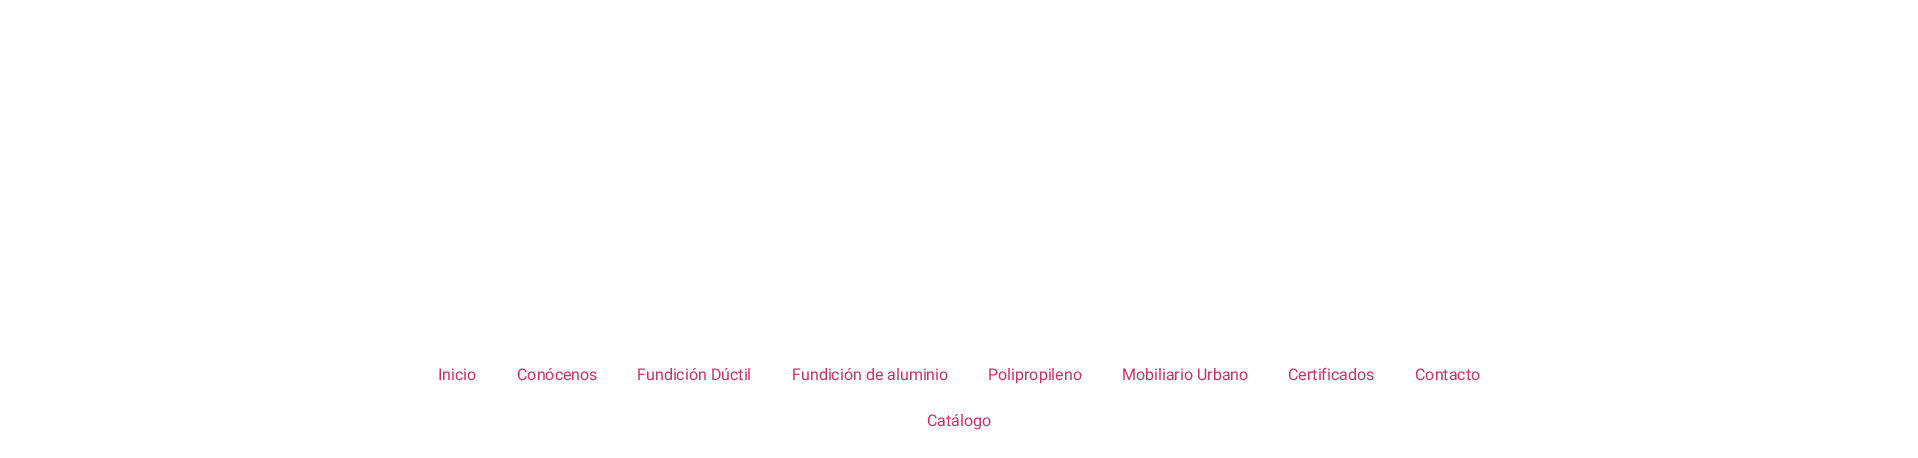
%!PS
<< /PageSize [1918 458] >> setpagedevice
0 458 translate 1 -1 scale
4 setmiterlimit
1 setgray
0 0 1918 458 rectfill
/Roboto-Regular [16 0 0 -16 0 0] selectfont
0.8 0.2 0.4 setrgbcolor
438 380 moveto (Inicio) show
517 380 moveto (Conócenos) show
637 380 moveto (Fundición Dúctil) show
792 380 moveto (Fundición de aluminio) show
988 380 moveto (Polipropileno) show
1122 380 moveto (Mobiliario Urbano) show
1288 380 moveto (Certificados) show
1415 380 moveto (Contacto) show
927 426 moveto (Catálogo) show
showpage
